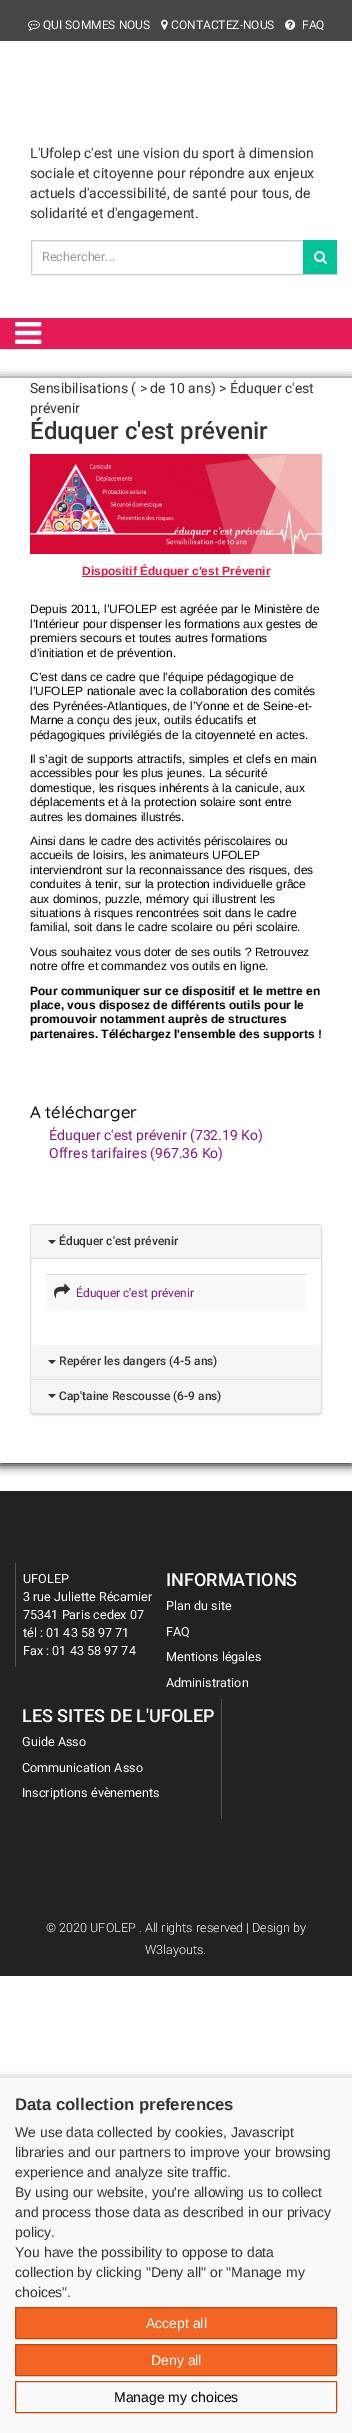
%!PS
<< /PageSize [352 2433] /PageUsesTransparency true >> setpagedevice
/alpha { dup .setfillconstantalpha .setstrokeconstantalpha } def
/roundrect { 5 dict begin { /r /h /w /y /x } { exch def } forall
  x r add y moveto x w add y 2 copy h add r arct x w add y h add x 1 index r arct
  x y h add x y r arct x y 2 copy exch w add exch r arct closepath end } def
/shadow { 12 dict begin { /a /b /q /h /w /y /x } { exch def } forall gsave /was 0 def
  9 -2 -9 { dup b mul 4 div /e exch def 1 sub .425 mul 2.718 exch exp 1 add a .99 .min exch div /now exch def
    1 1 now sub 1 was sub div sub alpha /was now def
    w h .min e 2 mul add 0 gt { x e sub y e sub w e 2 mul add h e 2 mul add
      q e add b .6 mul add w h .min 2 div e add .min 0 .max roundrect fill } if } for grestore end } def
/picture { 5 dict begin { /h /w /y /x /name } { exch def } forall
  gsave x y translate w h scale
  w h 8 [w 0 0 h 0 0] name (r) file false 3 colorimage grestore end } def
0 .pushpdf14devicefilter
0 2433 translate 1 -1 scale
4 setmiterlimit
1 setgray
0 0 352 2433 rectfill
0.275 setgray
0 0 352 41 rectfill
(img1.rgb) 28 20 12 11 picture
/Roboto-Regular [12 0 0 -12 0 0] selectfont
0.976 setgray
43 29 moveto (QUI SOMMES NOUS) show
(img2.rgb) 161 19 7 11 picture
171 29 moveto (CONTACTEZ-NOUS) show
(img3.rgb) 285 19 11 11 picture
302 29 moveto (FAQ) show
/Roboto-Regular [14 0 0 -14 0 0] selectfont
0.2 setgray
30 158 moveto (L'Ufolep c'est une vision du sport à dimension) show
30 178 moveto (sociale et citoyenne pour répondre aux enjeux) show
30 198 moveto (actuels d'accessibilité, de santé pour tous, de) show
30 218 moveto (solidarité et d'engagement.) show
0.8 setgray
31.5 240.5 305 34 rectstroke
/Roboto-Regular [12.6 0 0 -12.6 0 0] selectfont
0.6 setgray
42 261 moveto (Rechercher...) show
0.024 0.769 0.604 setrgbcolor
303 240 34 34 rectfill
(img4.rgb) 314 251 13 13 picture
0.898 0.106 0.345 setrgbcolor
0 318 352 31 rectfill
0.918 setgray
0 349 352 1 rectfill
(img5.rgb) 15 322 27 22 picture
gsave
newpath 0 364 moveto 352 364 lineto 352 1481 lineto 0 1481 lineto closepath 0 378 moveto 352 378 lineto 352 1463 lineto 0 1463 lineto closepath eoclip newpath
0 setgray
0 380 352 1085 0 5 1 shadow
grestore
/Roboto-Regular [14 0 0 -14 0 0] selectfont
0.2 setgray
30 393 moveto (Sensibilisations \( > de 10 ans\) > Éduquer c'est) show
30 413 moveto (prévenir) show
/Roboto-Medium [24 0 0 -24 0 0] selectfont
30 439 moveto (Éduquer c'est prévenir) show
(img6.rgb) 30 454 292 100 picture
0.898 0.098 0.259 setrgbcolor
82 576 188 1 rectfill
/LiberationSans-Bold [12 0 0 -12 0 0] selectfont
82 575 moveto (Dispositif Éduquer c'est Prévenir) show
/LiberationSans-Regular [12 0 0 -12 0 0] selectfont
0 setgray
30 613 moveto (Depuis 2011, l’UFOLEP est agréée par le Ministère de) show
30 628 moveto (l’Intérieur pour dispenser les formations aux gestes de) show
30 642 moveto (premiers secours et toutes autres formations) show
30 657 moveto (d’initiation et de prévention.) show
30 681 moveto (C’est dans ce cadre que l’équipe pédagogique de) show
30 695 moveto (l’UFOLEP nationale avec la collaboration des comités) show
30 710 moveto (des Pyrénées-Atlantiques, de l’Yonne et de Seine-et-) show
30 724 moveto (Marne a conçu des jeux, outils éducatifs et) show
30 739 moveto (pédagogiques privilégiés de la citoyenneté en actes.) show
30 763 moveto (Il s’agit de supports attractifs, simples et clefs en main) show
30 777 moveto (accessibles pour les plus jeunes. La sécurité) show
30 792 moveto (domestique, les risques inhérents à la canicule, aux) show
30 806 moveto (déplacements et à la protection solaire sont entre) show
30 821 moveto (autres les domaines illustrés.) show
30 845 moveto (Ainsi dans le cadre des activités périscolaires ou) show
30 859 moveto (accueils de loisirs, les animateurs UFOLEP) show
30 874 moveto (interviendront sur la reconnaissance des risques, des) show
30 888 moveto (conduites à tenir, sur la protection individuelle grâce) show
30 903 moveto (aux dominos, puzzle, mémory qui illustrent les) show
30 917 moveto (situations à risques rencontrées soit dans le cadre) show
30 931 moveto (familial, soit dans le cadre scolaire ou péri scolaire.) show
30 956 moveto (Vous souhaitez vous doter de ses outils ? Retrouvez) show
30 970 moveto (notre offre et commandez vos outils en ligne.) show
/LiberationSans-Bold [12 0 0 -12 0 0] selectfont
30 995 moveto (Pour communiquer sur ce dispositif et le mettre en) show
30 1009 moveto (place, vous disposez de différents outils pour le) show
30 1023 moveto (promouvoir notamment auprès de structures) show
30 1038 moveto (partenaires. Téléchargez l'ensemble des supports !) show
/Quicksand-Medium [16.75 0 0 -16.75 0 0] selectfont
30 1118 moveto (A télécharger) show
/Roboto-Regular [14 0 0 -14 0 0] selectfont
0.506 0.102 0.482 setrgbcolor
49 1140 moveto (Éduquer c'est prévenir \(732.19 Ko\)) show
49 1158 moveto (Offres tarifaires \(967.36 Ko\)) show
0 setgray
30 1225 292 191 4 0.5 0.05 shadow
1 setgray
30.5 1224.5 291 190 3.5 roundrect gsave fill grestore
0.867 setgray
stroke
0.961 setgray
newpath 34 1225 moveto 318 1225 lineto 319.5 1225 321 1226.5 321 1228 curveto 321 1259 lineto 31 1259 lineto 31 1228 lineto 31 1226.5 32.5 1225 34 1225 curveto closepath fill
0.867 setgray
31 1258 290 1 rectfill
0.2 setgray
newpath 48 1240 moveto 56 1240 lineto 52 1244 lineto closepath fill
/Roboto-Medium [12 0 0 -12 0 0] selectfont
59 1245 moveto (Éduquer c'est prévenir) show
0.976 setgray
46 1275 260 35 rectfill
0.867 setgray
46 1274 261 1 rectfill
(img7.rgb) 54 1283 16 16 picture
/Roboto-Regular [12 0 0 -12 0 0] selectfont
0.506 0.102 0.482 setrgbcolor
76 1297 moveto (Éduquer c'est prévenir) show
0.961 setgray
newpath 34 1345 moveto 318 1345 lineto 319.5 1345 321 1346.5 321 1348 curveto 321 1380 lineto 31 1380 lineto 31 1348 lineto 31 1346.5 32.5 1345 34 1345 curveto closepath fill
0.867 setgray
31 1379 290 1 rectfill
0.2 setgray
newpath 48 1360 moveto 56 1360 lineto 52 1364 lineto closepath fill
/Roboto-Medium [12 0 0 -12 0 0] selectfont
59 1365 moveto (Repérer les dangers \(4-5 ans\)) show
0.961 setgray
newpath 34 1380 moveto 318 1380 lineto 319.5 1380 321 1381.5 321 1383 curveto 321 1414 lineto 31 1414 lineto 31 1383 lineto 31 1381.5 32.5 1380 34 1380 curveto closepath fill
0.867 setgray
31 1413 290 1 rectfill
0.2 setgray
newpath 48 1394 moveto 56 1394 lineto 52 1398 lineto closepath fill
59 1400 moveto (Cap'taine Rescousse \(6-9 ans\)) show
0.133 setgray
0 1491 352 485 rectfill
0.329 setgray
15 1563 1 104 rectfill
/Roboto-Regular [12.6 0 0 -12.6 0 0] selectfont
1 setgray
23 1583 moveto (UFOLEP) show
23 1601 moveto (3 rue Juliette Récamier) show
23 1619 moveto (75341 Paris cedex 07) show
23 1637 moveto (tél : 01 43 58 97 71) show
23 1655 moveto (Fax : 01 43 58 97 74) show
/Roboto-Medium [18 0 0 -18 0 0] selectfont
166 1586 moveto (INFORMATIONS) show
/Roboto-Regular [12.6 0 0 -12.6 0 0] selectfont
166 1610 moveto (Plan du site) show
166 1636 moveto (FAQ) show
166 1661 moveto (Mentions légales) show
166 1687 moveto (Administration) show
/Roboto-Medium [18 0 0 -18 0 0] selectfont
22 1722 moveto (LES SITES DE L'UFOLEP) show
/Roboto-Regular [12.6 0 0 -12.6 0 0] selectfont
22 1746 moveto (Guide Asso) show
22 1772 moveto (Communication Asso) show
22 1797 moveto (Inscriptions évènements) show
0.329 setgray
221 1699 1 120 rectfill
/Roboto-Light [12.6 0 0 -12.6 0 0] selectfont
1 setgray
46 1932 moveto (© 2020 UFOLEP . All rights reserved | Design by) show
145 1954 moveto (W3layouts.) show
0 setgray
-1 2075 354 357 0 2.5 0.14 shadow
0.976 setgray
0 2078 352 355 rectfill
/LiberationSans-Bold [16.75 0 0 -16.75 0 0] selectfont
0.2 setgray
15 2110 moveto (Data collection preferences) show
/LiberationSans-Regular [14 0 0 -14 0 0] selectfont
15 2137 moveto (We use data collected by cookies, Javascript) show
15 2157 moveto (libraries and our partners to improve your browsing) show
15 2177 moveto (experience and analyze site traffic.) show
15 2197 moveto (By using our website, you're allowing us to collect) show
15 2217 moveto (and process those data as described in our privacy) show
15 2237 moveto (policy.) show
15 2257 moveto (You have the possibility to oppose to data) show
15 2277 moveto (collection by clicking "Deny all" or "Manage my) show
15 2297 moveto (choices".) show
0.949 0.396 0.133 setrgbcolor
15.5 2307.5 321 31 0.5 roundrect gsave fill grestore
0.765 0.275 0.043 setrgbcolor
stroke
1 setgray
146 2328 moveto (Accept all) show
0.949 0.396 0.133 setrgbcolor
15.5 2344.5 321 31 0.5 roundrect gsave fill grestore
0.765 0.275 0.043 setrgbcolor
stroke
1 setgray
151 2365 moveto (Deny all) show
0.765 0.275 0.043 setrgbcolor
15.5 2381.5 321 31 0.5 roundrect stroke
0 setgray
114 2402 moveto (Manage my choices) show
.poppdf14devicefilter showpage
